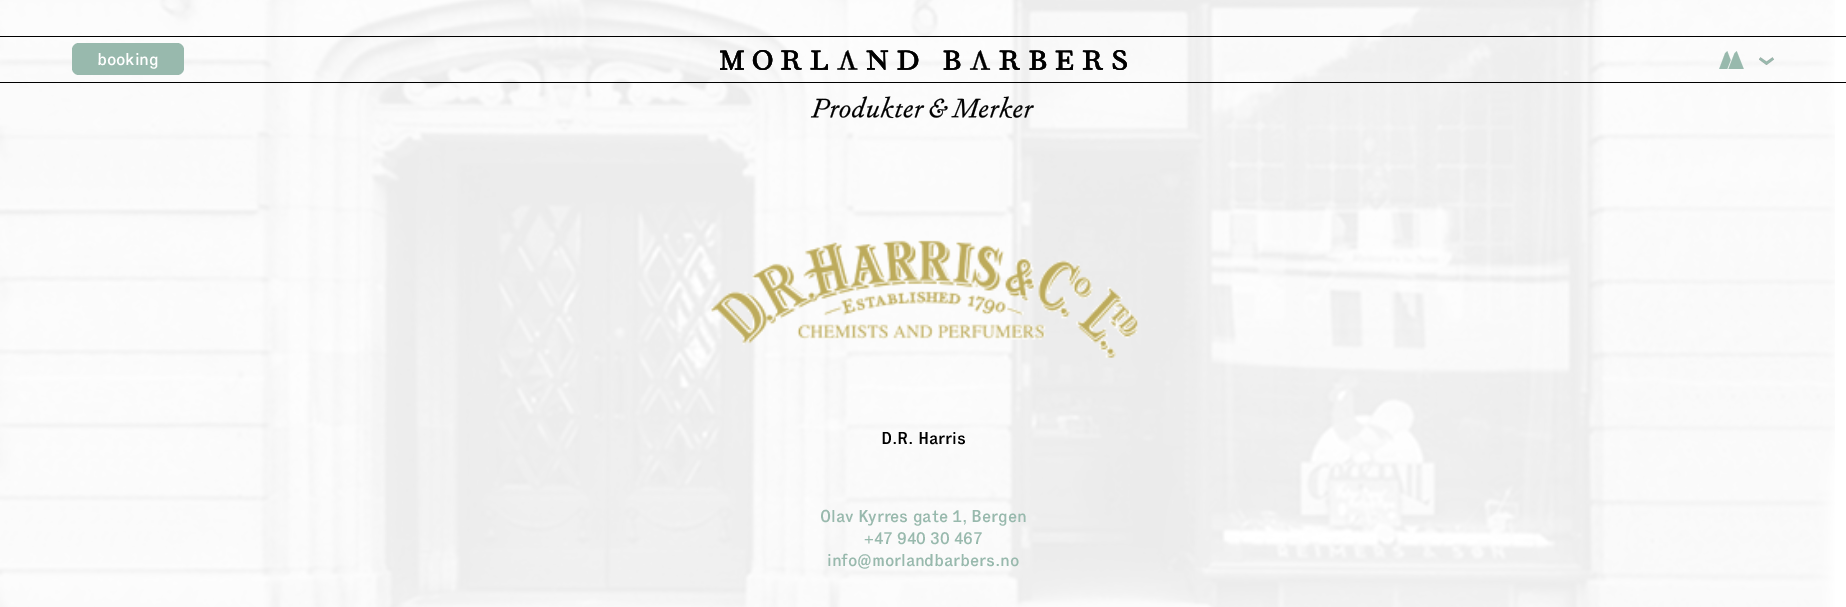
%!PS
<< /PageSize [1846 607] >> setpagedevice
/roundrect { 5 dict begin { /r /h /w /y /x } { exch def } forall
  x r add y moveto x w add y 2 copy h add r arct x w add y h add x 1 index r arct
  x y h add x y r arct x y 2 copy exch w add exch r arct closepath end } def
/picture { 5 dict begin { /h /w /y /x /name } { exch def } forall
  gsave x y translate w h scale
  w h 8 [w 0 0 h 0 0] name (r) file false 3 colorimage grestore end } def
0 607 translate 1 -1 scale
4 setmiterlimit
1 setgray
0 0 1846 607 rectfill
(img1.rgb) 0 0 1835 607 picture
0 setgray
0 36 1846 1 rectfill
0 82 1846 1 rectfill
0.596 0.725 0.678 setrgbcolor
72 43 112 32 7 roundrect fill
/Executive-Medium [17 0 0 -17 0 0] selectfont
1 setgray
97 65 moveto -0.2 0 (booking) ashow
(img2.rgb) 720 50 407 20 picture
(img3.rgb) 1719 51 25 18 picture
(img4.rgb) 1759 57 15 8 picture
(img5.rgb) 810 96 224 23 picture
(img6.rgb) 711 240 427 118 picture
0 setgray
881 444 moveto -0.5 0 32 -0.2 0 (D.R. Harris) awidthshow
0.596 0.725 0.678 setrgbcolor
820 522 moveto -0.5 0 32 -0.2 0 (Olav Kyrres gate 1, Bergen) awidthshow
864 544 moveto -0.5 0 32 -0.2 0 (+47 940 30 467) awidthshow
827 566 moveto -0.2 0 (info@morlandbarbers.no) ashow
showpage
